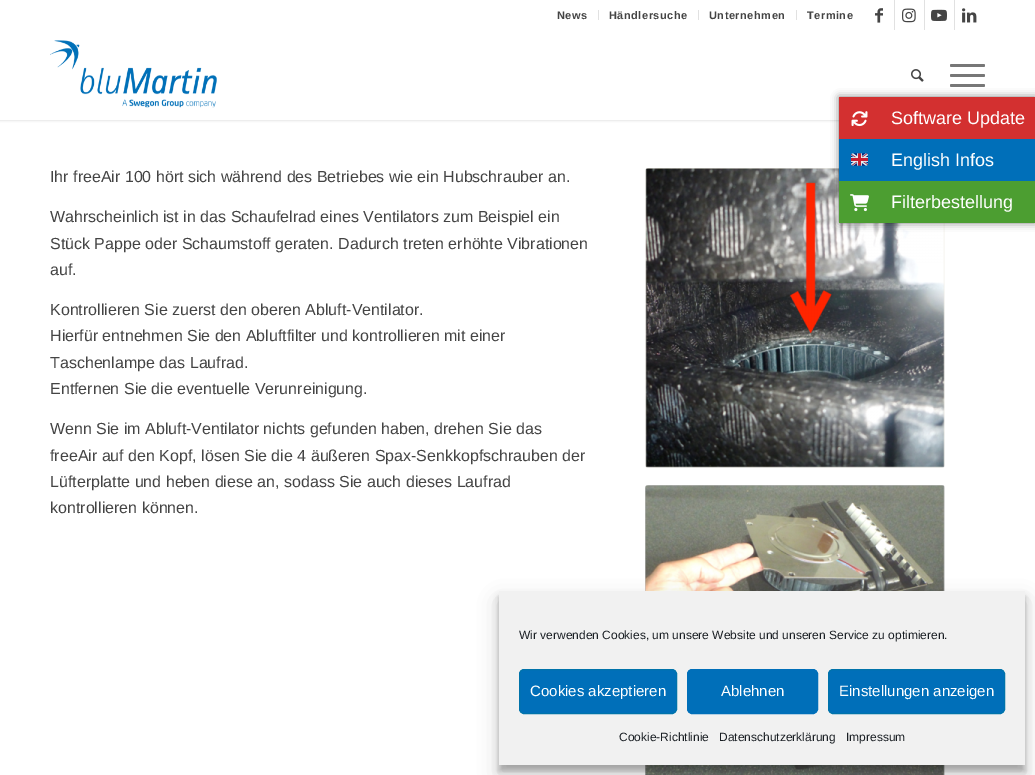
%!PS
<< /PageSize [1035 775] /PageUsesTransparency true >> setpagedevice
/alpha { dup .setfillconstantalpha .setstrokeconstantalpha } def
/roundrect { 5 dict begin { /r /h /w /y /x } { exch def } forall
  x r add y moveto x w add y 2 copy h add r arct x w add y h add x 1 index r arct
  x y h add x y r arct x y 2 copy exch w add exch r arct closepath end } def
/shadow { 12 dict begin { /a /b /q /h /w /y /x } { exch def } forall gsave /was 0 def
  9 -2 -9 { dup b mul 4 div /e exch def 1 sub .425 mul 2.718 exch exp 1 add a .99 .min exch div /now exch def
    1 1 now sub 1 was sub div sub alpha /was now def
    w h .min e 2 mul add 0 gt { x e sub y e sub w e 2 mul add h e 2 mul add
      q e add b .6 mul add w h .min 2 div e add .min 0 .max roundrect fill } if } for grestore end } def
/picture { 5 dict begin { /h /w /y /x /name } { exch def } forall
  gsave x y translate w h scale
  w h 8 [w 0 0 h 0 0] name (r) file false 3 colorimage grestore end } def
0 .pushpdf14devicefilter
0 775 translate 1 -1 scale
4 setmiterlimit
1 setgray
0 0 1035 775 rectfill
0 setgray
-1 -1 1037 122 0 1 0.1 shadow
1 setgray
0 0 1035 120 rectfill
0.882 setgray
598 10 1 10 rectfill
/LiberationSans-Bold [11 0 0 -11 0 0] selectfont
0.267 setgray
557 19 moveto 0.5 0 (News) ashow
0.882 setgray
698 10 1 10 rectfill
0.267 setgray
609 19 moveto 0.5 0 (Händlersuche) ashow
0.882 setgray
796 10 1 10 rectfill
0.267 setgray
709 19 moveto 0.5 0 (Unternehmen) ashow
807 19 moveto 0.5 0 (Termine) ashow
0.882 setgray
894 0 1 30 rectfill
(img1.rgb) 875 8 8 15 picture
924 0 1 30 rectfill
(img2.rgb) 902 8 14 15 picture
954 0 1 30 rectfill
(img3.rgb) 931 9 16 12 picture
(img4.rgb) 962 8 15 15 picture
(img5.rgb) 50 40 167 68 picture
(img6.rgb) 911 69 13 13 picture
0.467 setgray
950 74 35 3 1.5 roundrect fill
950 64 35 3 1.5 roundrect fill
950 84 35 3 1.5 roundrect fill
/LiberationSans-Regular [16 0 0 -16 0 0] selectfont
0.267 setgray
50 182 moveto (Ihr freeAir 100 hört sich während des Betriebes wie ein Hubschrauber an.) show
50 222 moveto (Wahrscheinlich ist in das Schaufelrad eines Ventilators zum Beispiel ein) show
50 249 moveto (Stück Pappe oder Schaumstoff geraten. Dadurch treten erhöhte Vibrationen) show
50 275 moveto (auf.) show
50 315 moveto (Kontrollieren Sie zuerst den oberen Abluft-Ventilator.) show
50 341 moveto (Hierfür entnehmen Sie den Abluftfilter und kontrollieren mit einer) show
50 368 moveto (Taschenlampe das Laufrad.) show
50 394 moveto (Entfernen Sie die eventuelle Verunreinigung.) show
50 434 moveto (Wenn Sie im Abluft-Ventilator nichts gefunden haben, drehen Sie das) show
50 461 moveto (freeAir auf den Kopf, lösen Sie die 4 äußeren Spax-Senkkopfschrauben der) show
50 487 moveto (Lüfterplatte und heben diese an, sodass Sie auch dieses Laufrad) show
50 513 moveto (kontrollieren können.) show
(img7.rgb) 645 168 300 300 picture
(img8.rgb) 645 485 300 290 picture
0 setgray
839 97 196 126 0 4 0.5 shadow
0.827 0.188 0.188 setrgbcolor
839 97 196 42 rectfill
(img9.rgb) 851 111 17 16 picture
/LiberationSans-Regular [18 0 0 -18 0 0] selectfont
1 setgray
891 124 moveto (Software Update) show
0 0.435 0.725 setrgbcolor
839 139 196 42 rectfill
(img10.rgb) 851 153 17 13 picture
1 setgray
891 166 moveto (English Infos) show
0.298 0.62 0.192 setrgbcolor
839 181 196 42 rectfill
(img11.rgb) 850 194 19 18 picture
1 setgray
891 208 moveto (Filterbestellung) show
0 setgray
499 597 526 174 0 3 0.23 shadow
499 601 526 174 0 10 0.19 shadow
0.945 setgray
499 591 526 174 rectfill
/LiberationSans-Regular [12 0 0 -12 0 0] selectfont
0.098 0.118 0.137 setrgbcolor
519 639 moveto (Wir verwenden Cookies, um unsere Website und unseren Service zu optimieren.) show
0 0.435 0.725 setrgbcolor
519.5 669.5 157 44 4.5 roundrect gsave fill grestore
0 0.451 0.667 setrgbcolor
stroke
/LiberationSans-Regular [15 0 0 -15 0 0] selectfont
1 setgray
530 696 moveto (Cookies akzeptieren) show
0 0.435 0.725 setrgbcolor
687.5 669.5 130 44 4.5 roundrect gsave fill grestore
stroke
1 setgray
721 696 moveto (Ablehnen) show
0 0.435 0.725 setrgbcolor
828.5 669.5 176 44 4.5 roundrect gsave fill grestore
0 0.451 0.667 setrgbcolor
stroke
1 setgray
839 696 moveto (Einstellungen anzeigen) show
/LiberationSans-Regular [12 0 0 -12 0 0] selectfont
0.098 0.118 0.137 setrgbcolor
619 741 moveto (Cookie-Richtlinie) show
719 741 moveto (Datenschutzerklärung) show
846 741 moveto (Impressum) show
.poppdf14devicefilter showpage
